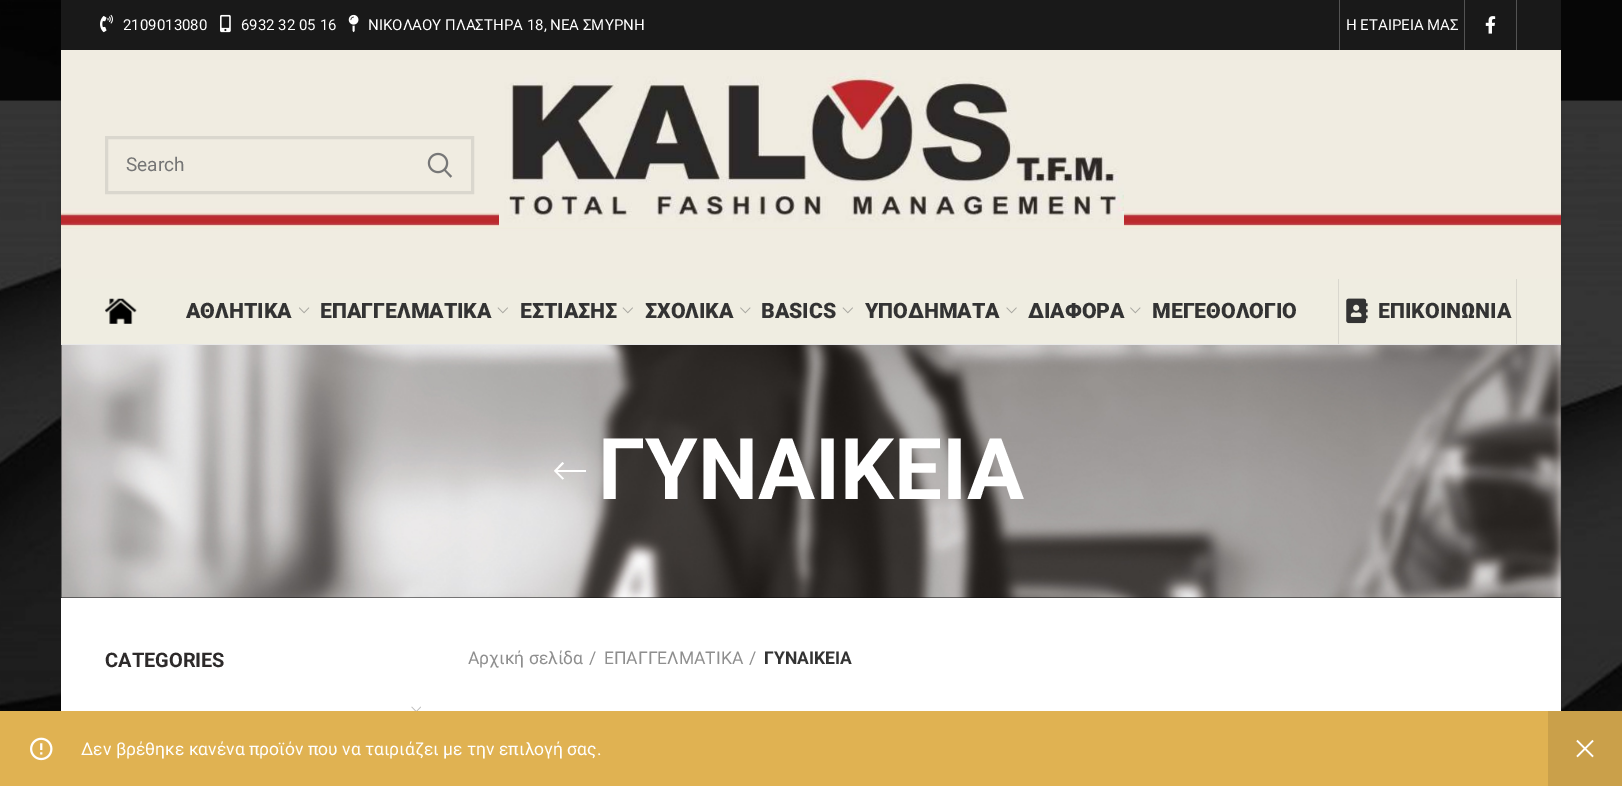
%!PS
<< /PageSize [1622 786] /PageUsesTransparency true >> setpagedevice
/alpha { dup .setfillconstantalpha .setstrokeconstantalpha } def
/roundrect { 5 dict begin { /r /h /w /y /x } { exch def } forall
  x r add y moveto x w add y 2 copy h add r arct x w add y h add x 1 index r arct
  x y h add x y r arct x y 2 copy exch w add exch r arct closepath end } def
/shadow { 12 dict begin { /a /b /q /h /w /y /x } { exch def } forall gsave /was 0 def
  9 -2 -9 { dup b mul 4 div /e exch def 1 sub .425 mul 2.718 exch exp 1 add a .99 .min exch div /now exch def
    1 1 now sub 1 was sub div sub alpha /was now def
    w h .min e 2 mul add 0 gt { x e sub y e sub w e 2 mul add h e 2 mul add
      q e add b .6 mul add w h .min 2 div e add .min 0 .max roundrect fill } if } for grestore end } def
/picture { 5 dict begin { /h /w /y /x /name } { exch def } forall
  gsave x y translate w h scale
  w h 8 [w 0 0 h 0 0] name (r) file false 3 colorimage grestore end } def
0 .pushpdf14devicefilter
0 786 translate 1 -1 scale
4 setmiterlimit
1 setgray
0 0 1622 786 rectfill
(img1.rgb) 0 0 1622 711 picture
0 setgray
61 1 1500 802 0 5.5 0.08 shadow
1 setgray
61 598 1500 113 rectfill
0.098 setgray
61 0 1500 50 rectfill
(img2.rgb) 100 14 13 19 picture
/Roboto-Regular [15 0 0 -15 0 0] selectfont
1 setgray
123 30 moveto (2109013080) show
(img3.rgb) 220 14 11 19 picture
241 30 moveto (6932 32 05 16) show
(img4.rgb) 348 14 11 19 picture
368 30 moveto (ΝΙΚΟΛΑΟΥ ΠΛΑΣΤΗΡΑ 18, ΝΕΑ ΣΜΥΡΝΗ) show
0.325 setgray
1339 0 1 50 rectfill
1 setgray
1346 30 moveto (Η ΕΤΑΙΡΕΙΑ ΜΑΣ) show
0.325 setgray
1464 0 1 50 rectfill
(img5.rgb) 1485 16 11 18 picture
1516 0 1 50 rectfill
(img6.rgb) 61 50 1500 229 picture
0.855 0.843 0.808 setrgbcolor
3 setlinewidth
106.5 137.5 366 55 rectstroke
/Roboto-Regular [19 0 0 -19 0 0] selectfont
0.459 setgray
126 171 moveto (Search) show
(img7.rgb) 427 152 26 26 picture
(img8.rgb) 499 70 625 157 picture
0.937 0.929 0.882 setrgbcolor
61 279 1500 65 rectfill
0.91 setgray
61 344 1500 1 rectfill
(img9.rgb) 105 298 32 26 picture
/Roboto-Black [21.25 0 0 -21.25 0 0] selectfont
0.2 setgray
186 318 moveto (ΑΘΛΗΤΙΚΑ) show
(img10.rgb) 299 307 11 7 picture
320 318 moveto (ΕΠΑΓΓΕΛΜΑΤΙΚΑ) show
(img11.rgb) 497 307 11 7 picture
520 318 moveto (ΕΣΤΙΑΣΗΣ) show
(img11.rgb) 622 307 11 7 picture
645 318 moveto (ΣΧΟΛΙΚΑ) show
(img12.rgb) 740 307 11 7 picture
761 318 moveto (BASICS) show
(img11.rgb) 842 307 11 7 picture
865 318 moveto (ΥΠΟΔΗΜΑΤΑ) show
(img13.rgb) 1006 307 11 7 picture
1028 318 moveto (ΔΙΑΦΟΡΑ) show
(img12.rgb) 1130 307 11 7 picture
1152 318 moveto (ΜΕΓΕΘΟΛΟΓΙΟ) show
0.851 0.843 0.808 setrgbcolor
1338 279 1 65 rectfill
(img14.rgb) 1346 298 22 26 picture
0.2 setgray
1378 318 moveto (ΕΠΙΚΟΙΝΩΝΙΑ) show
0.851 0.843 0.808 setrgbcolor
1516 279 1 65 rectfill
0.039 setgray
61 345 1500 253 rectfill
(img15.rgb) 61 345 1501 253 picture
1 setgray
newpath 586 470 moveto 586 472 lineto 557.5 472 lineto 564 478.5 lineto 562.5 479.5 lineto 554 471 lineto 562.5 462 lineto 564 463.5 lineto 557.5 470 lineto closepath fill
/Roboto-Bold [85 0 0 -85 0 0] selectfont
598 499 moveto (ΓΥΝΑΙΚΕΙΑ) show
/Roboto-Regular [17.5 0 0 -17.5 0 0] selectfont
0.557 setgray
468 664 moveto (Αρχική σελίδα) show
589 664 moveto (/) show
604 664 moveto (ΕΠΑΓΓΕΛΜΑΤΙΚΑ) show
749 664 moveto (/) show
/Roboto-Bold [17.5 0 0 -17.5 0 0] selectfont
0.2 setgray
764 664 moveto (ΓΥΝΑΙΚΕΙΑ) show
0.878 0.698 0.322 setrgbcolor
0 711 1548 75 rectfill
(img16.rgb) 30 737 23 24 picture
/Roboto-Regular [17.5 0 0 -17.5 0 0] selectfont
1 setgray
81 755 moveto (Δεν βρέθηκε κανένα προϊόν που να ταιριάζει με την επιλογή σας.) show
0.792 0.627 0.29 setrgbcolor
1548 711 74 75 rectfill
(img17.rgb) 1576 739 18 19 picture
/Roboto-Bold [20 0 0 -20 0 0] selectfont
0.176 0.165 0.165 setrgbcolor
105 667 moveto (CATEGORIES) show
(img18.rgb) 411 706 10 5 picture
.poppdf14devicefilter showpage
